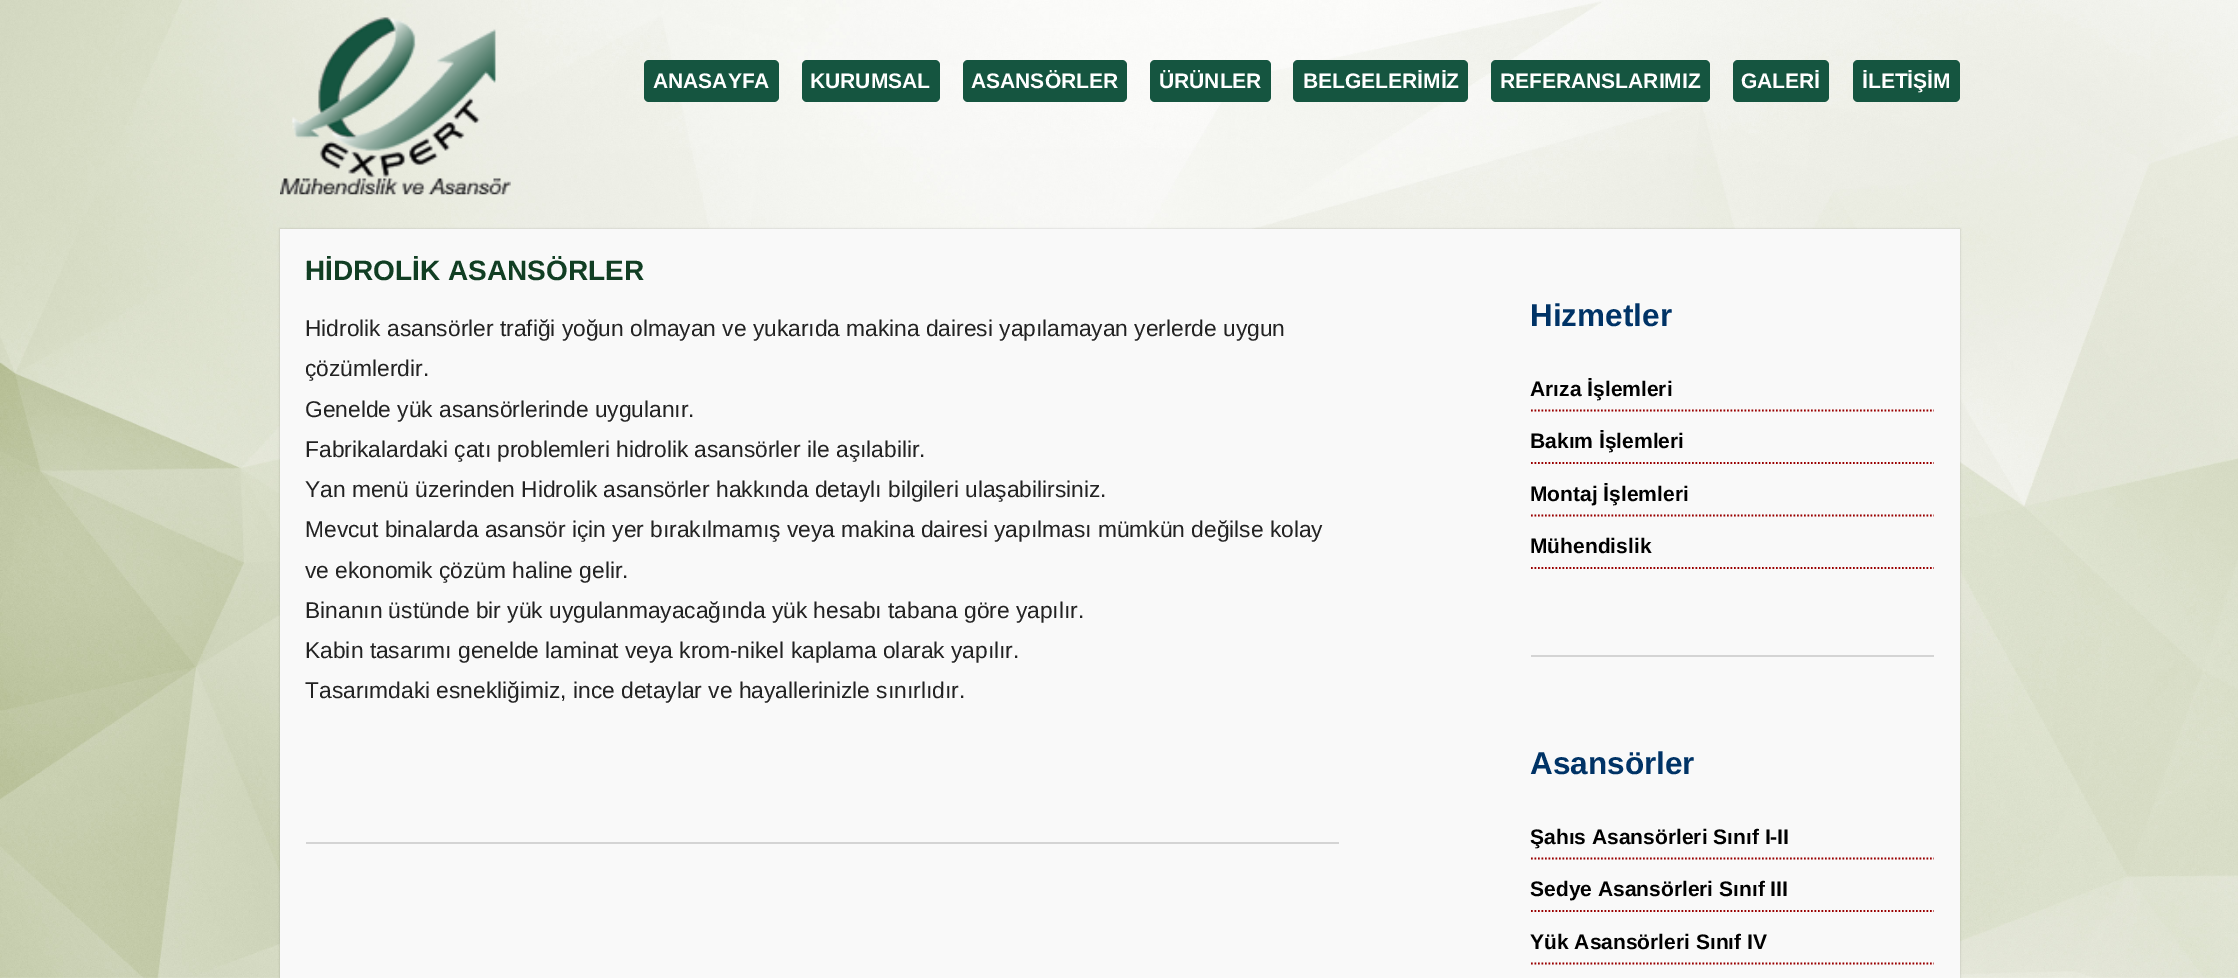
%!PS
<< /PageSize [2238 978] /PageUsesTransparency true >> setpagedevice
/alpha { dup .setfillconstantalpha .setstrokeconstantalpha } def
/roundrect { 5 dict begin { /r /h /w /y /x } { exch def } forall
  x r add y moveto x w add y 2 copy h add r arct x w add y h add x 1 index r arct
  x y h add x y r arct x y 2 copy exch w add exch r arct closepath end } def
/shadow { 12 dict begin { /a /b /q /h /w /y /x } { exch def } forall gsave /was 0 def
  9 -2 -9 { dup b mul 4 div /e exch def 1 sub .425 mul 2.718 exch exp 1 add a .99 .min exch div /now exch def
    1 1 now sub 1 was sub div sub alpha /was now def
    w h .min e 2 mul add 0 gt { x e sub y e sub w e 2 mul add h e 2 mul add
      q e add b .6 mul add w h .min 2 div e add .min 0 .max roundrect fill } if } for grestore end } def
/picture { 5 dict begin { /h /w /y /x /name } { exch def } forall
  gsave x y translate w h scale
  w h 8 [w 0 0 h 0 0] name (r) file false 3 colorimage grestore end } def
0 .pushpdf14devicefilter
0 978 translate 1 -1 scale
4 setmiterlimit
1 setgray
0 0 2238 978 rectfill
(img1.rgb) 0 0 2238 978 picture
(img2.rgb) 280 17 231 178 picture
0.082 0.333 0.251 setrgbcolor
644 60 135 42 5 roundrect fill
/LiberationSans-Bold [21 0 0 -21 0 0] selectfont
1 setgray
653 88 moveto (ANASAYFA) show
0.082 0.333 0.251 setrgbcolor
802 60 138 42 5 roundrect fill
1 setgray
810 88 moveto (KURUMSAL) show
0.082 0.333 0.251 setrgbcolor
963 60 164 42 5 roundrect fill
1 setgray
971 88 moveto (ASANSÖRLER) show
0.082 0.333 0.251 setrgbcolor
1150 60 121 42 5 roundrect fill
1 setgray
1159 88 moveto (ÜRÜNLER) show
0.082 0.333 0.251 setrgbcolor
1293 60 175 42 5 roundrect fill
1 setgray
1303 88 moveto (BELGELERİMİZ) show
0.082 0.333 0.251 setrgbcolor
1491 60 219 42 5 roundrect fill
1 setgray
1500 88 moveto (REFERANSLARIMIZ) show
0.082 0.333 0.251 setrgbcolor
1733 60 96 42 5 roundrect fill
1 setgray
1741 88 moveto (GALERİ) show
0.082 0.333 0.251 setrgbcolor
1853 60 107 42 5 roundrect fill
1 setgray
1862 88 moveto (İLETİŞİM) show
0 setgray
280 229 1680 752 0 1 0.2 shadow
0.976 setgray
280 229 1680 749 rectfill
0.831 setgray
306 842 1033 2 rectfill
/LiberationSans-Bold [28 0 0 -28 0 0] selectfont
0.067 0.243 0.137 setrgbcolor
305 280 moveto (HİDROLİK ASANSÖRLER) show
/LiberationSans-Regular [22.75 0 0 -22.75 0 0] selectfont
0.133 setgray
305 336 moveto (Hidrolik asansörler trafiği yoğun olmayan ve yukarıda makina dairesi yapılamayan yerlerde uygun) show
305 376 moveto (çözümlerdir.) show
305 417 moveto (Genelde yük asansörlerinde uygulanır.) show
305 457 moveto (Fabrikalardaki çatı problemleri hidrolik asansörler ile aşılabilir.) show
305 497 moveto (Yan menü üzerinden Hidrolik asansörler hakkında detaylı bilgileri ulaşabilirsiniz.) show
305 537 moveto (Mevcut binalarda asansör için yer bırakılmamış veya makina dairesi yapılması mümkün değilse kolay) show
305 578 moveto (ve ekonomik çözüm haline gelir.) show
305 618 moveto (Binanın üstünde bir yük uygulanmayacağında yük hesabı tabana göre yapılır.) show
305 658 moveto (Kabin tasarımı genelde laminat veya krom-nikel kaplama olarak yapılır.) show
305 698 moveto (Tasarımdaki esnekliğimiz, ince detaylar ve hayallerinizle sınırlıdır.) show
/LiberationSans-Bold [31.5 0 0 -31.5 0 0] selectfont
0 0.2 0.4 setrgbcolor
1530 326 moveto (Hizmetler) show
0.6 0 0 setrgbcolor
1.8 setlinewidth
[1.75 1.75] 0 setdash
newpath 1531 410.5 moveto 1934 410.5 lineto stroke
/LiberationSans-Bold [21 0 0 -21 0 0] selectfont
0 setgray
1530 396 moveto (Arıza İşlemleri) show
0.6 0 0 setrgbcolor
newpath 1531 463 moveto 1934 463 lineto stroke
0 setgray
1530 448 moveto (Bakım İşlemleri) show
0.6 0 0 setrgbcolor
newpath 1531 515.5 moveto 1934 515.5 lineto stroke
0 setgray
1530 501 moveto (Montaj İşlemleri) show
0.6 0 0 setrgbcolor
newpath 1531 568 moveto 1934 568 lineto stroke
0 setgray
1530 553 moveto (Mühendislik) show
0.831 setgray
1531 655 403 2 rectfill
/LiberationSans-Bold [31.5 0 0 -31.5 0 0] selectfont
0 0.2 0.4 setrgbcolor
1530 774 moveto (Asansörler) show
0.6 0 0 setrgbcolor
newpath 1531 858.5 moveto 1934 858.5 lineto stroke
/LiberationSans-Bold [21 0 0 -21 0 0] selectfont
0 setgray
1530 844 moveto (Şahıs Asansörleri Sınıf I-II) show
0.6 0 0 setrgbcolor
newpath 1531 911 moveto 1934 911 lineto stroke
0 setgray
1530 896 moveto (Sedye Asansörleri Sınıf III) show
0.6 0 0 setrgbcolor
newpath 1531 963.5 moveto 1934 963.5 lineto stroke
0 setgray
1530 949 moveto (Yük Asansörleri Sınıf IV) show
.poppdf14devicefilter showpage
